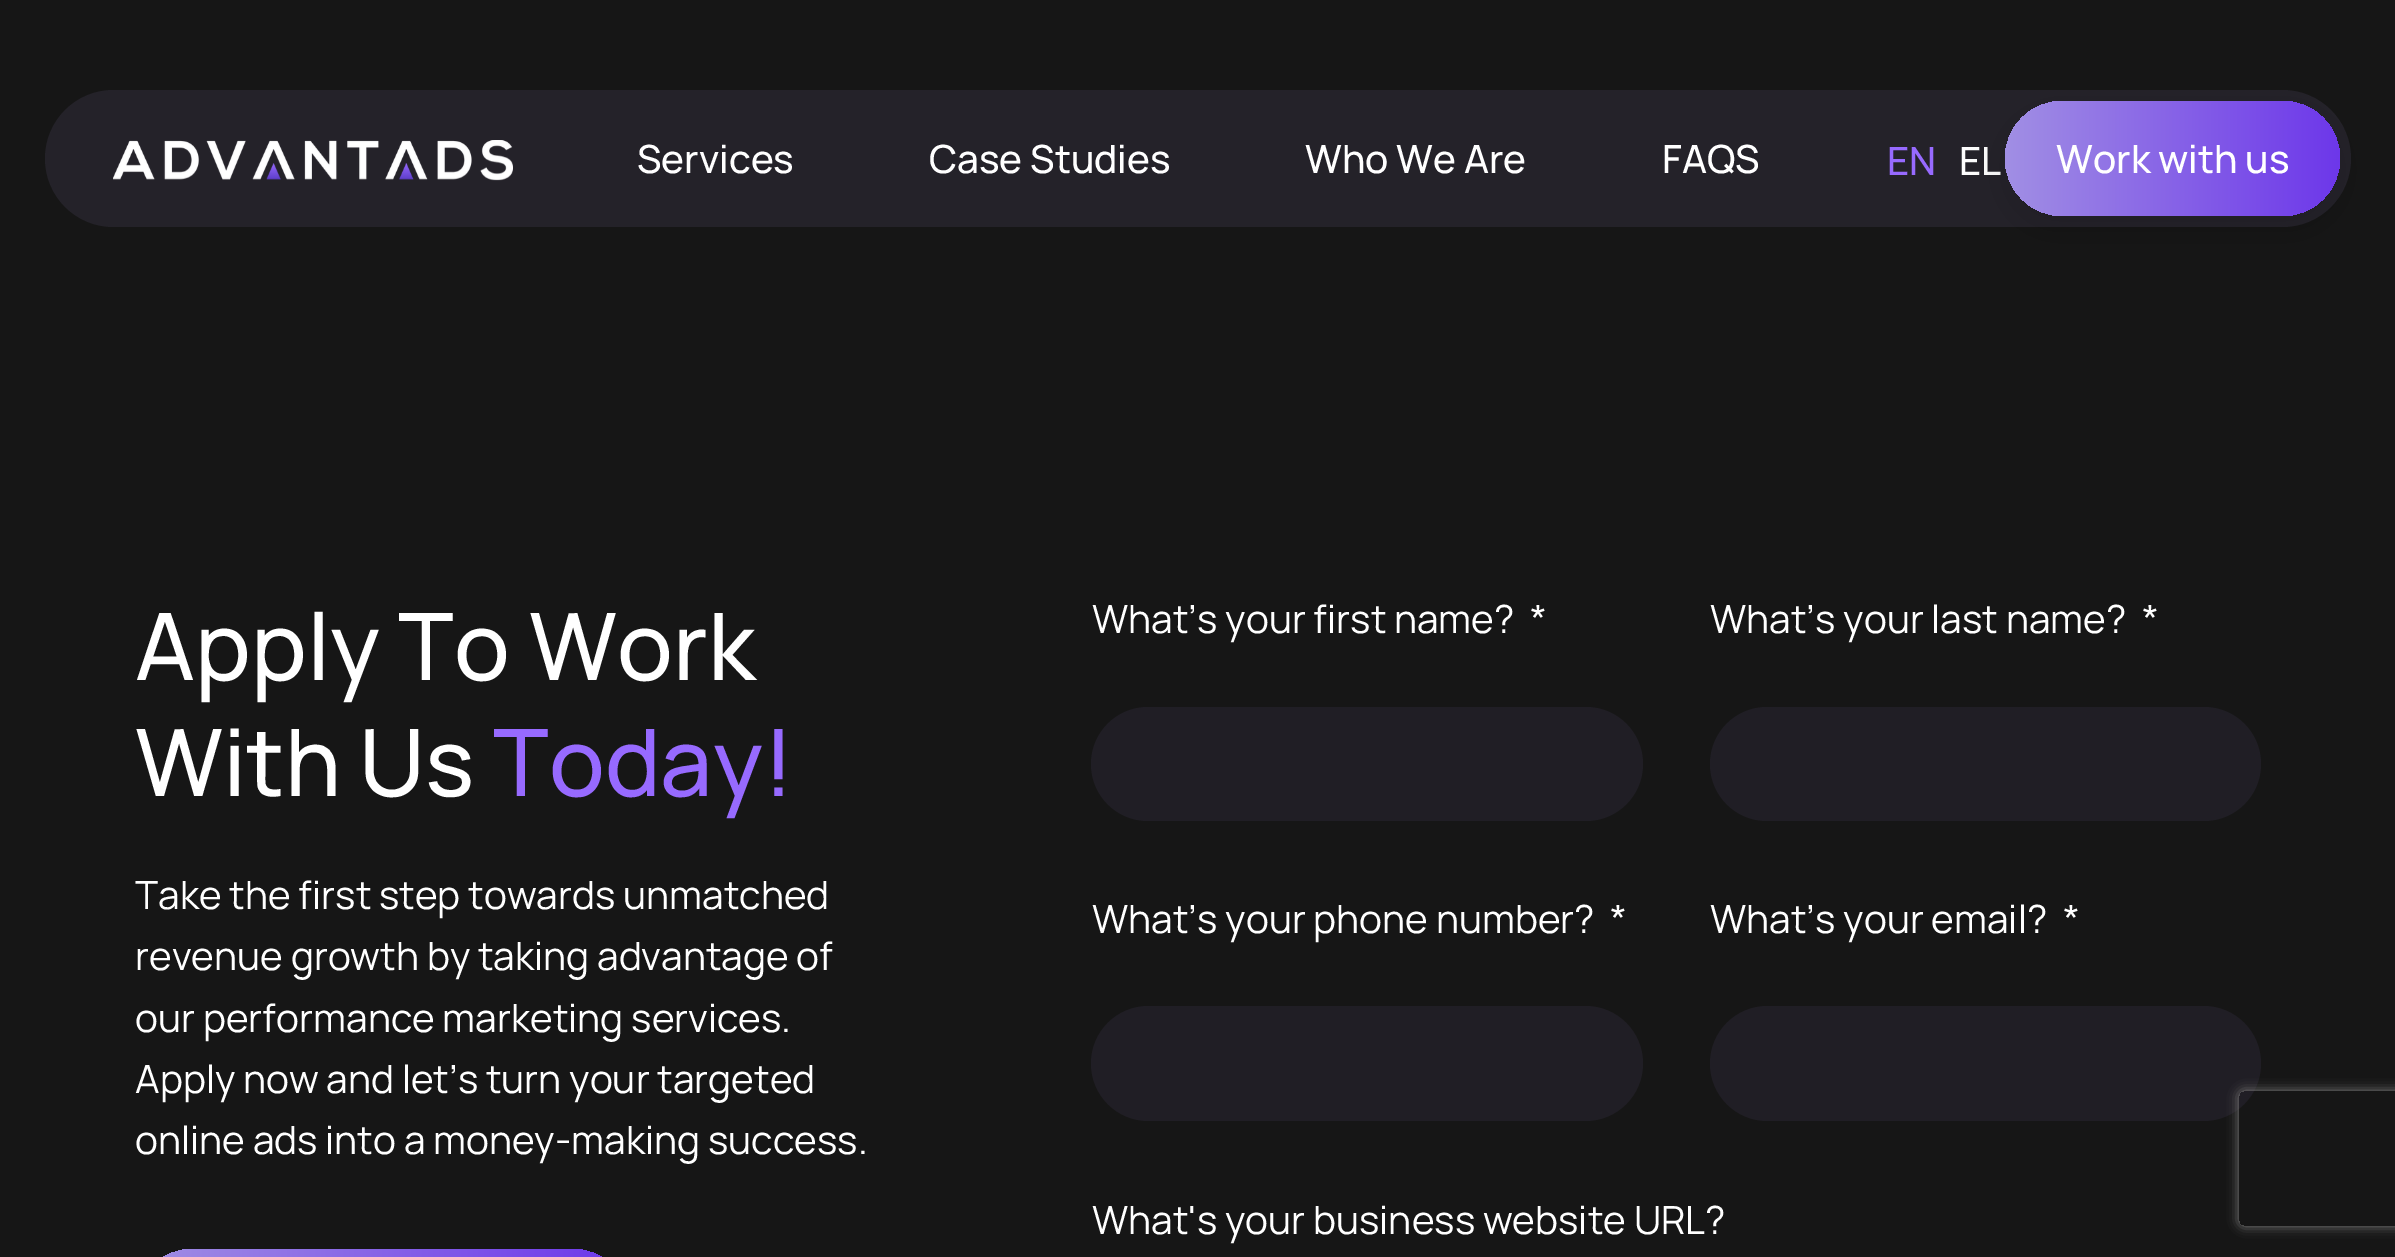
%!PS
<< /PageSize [2395 1257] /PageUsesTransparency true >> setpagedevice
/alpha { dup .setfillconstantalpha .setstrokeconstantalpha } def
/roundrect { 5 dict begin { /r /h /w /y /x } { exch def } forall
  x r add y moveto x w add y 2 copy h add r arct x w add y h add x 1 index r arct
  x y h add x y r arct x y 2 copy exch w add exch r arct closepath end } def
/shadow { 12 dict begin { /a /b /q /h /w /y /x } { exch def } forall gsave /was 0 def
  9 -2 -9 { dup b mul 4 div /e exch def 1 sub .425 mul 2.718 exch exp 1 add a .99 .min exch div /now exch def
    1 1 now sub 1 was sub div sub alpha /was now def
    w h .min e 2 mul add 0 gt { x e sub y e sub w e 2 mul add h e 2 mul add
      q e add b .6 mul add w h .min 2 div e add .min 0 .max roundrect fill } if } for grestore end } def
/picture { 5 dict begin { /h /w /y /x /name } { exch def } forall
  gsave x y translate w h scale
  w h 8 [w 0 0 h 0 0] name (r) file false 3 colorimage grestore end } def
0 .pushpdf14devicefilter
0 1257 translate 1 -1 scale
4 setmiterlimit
0.086 setgray
0 0 2395 1257 rectfill
0.141 0.133 0.161 setrgbcolor
45 90 2306 137 68.5 roundrect fill
(img1.rgb) 113 140 400 41 picture
/Manrope-Medium [38.8 0 0 -38.8 0 0] selectfont
1 setgray
637 173 moveto (Services) show
929 173 moveto (Case Studies) show
1305 173 moveto (Who We Are) show
1662 173 moveto (FAQS) show
0.592 0.416 1 setrgbcolor
1887 175 moveto (EN) show
1 setgray
1959 175 moveto (EL) show
0 setgray
2005 113 335 114 57 22.5 0.15 shadow
gsave 2005 101 335 115 57.5 roundrect clip newpath
<< /ShadingType 2 /ColorSpace /DeviceRGB /Coords [2005 159 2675 159] /Extend [true true] /Function << /FunctionType 3 /Domain [0 1] /Functions [<< /FunctionType 2 /Domain [0 1] /C0 [0.631 0.561 0.894] /C1 [0.424 0.208 0.918] /N 1 >> << /FunctionType 2 /Domain [0 1] /C0 [0.424 0.208 0.918] /C1 [0.631 0.561 0.894] /N 1 >>] /Bounds [0.51] /Encode [0 1 0 1] >> >> shfill grestore
1 setgray
2056 173 moveto (Work with us) show
/Manrope-Medium [93 0 0 -93 0 0] selectfont
135 680 moveto (Apply To Work) show
135 796 moveto (With Us) show
0.592 0.416 1 setrgbcolor
493 796 moveto (Today!) show
/Manrope-Regular [38.8 0 0 -38.8 0 0] selectfont
1 setgray
135 909 moveto (Take the first step towards unmatched) show
135 970 moveto (revenue growth by taking advantage of) show
135 1032 moveto (our performance marketing services.) show
135 1093 moveto (Apply now and let’s turn your targeted) show
135 1154 moveto (online ads into a money-making success.) show
gsave 135 1249 495 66 57.5 roundrect clip newpath
<< /ShadingType 2 /ColorSpace /DeviceRGB /Coords [135 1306 1125 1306] /Extend [true true] /Function << /FunctionType 3 /Domain [0 1] /Functions [<< /FunctionType 2 /Domain [0 1] /C0 [0.631 0.561 0.894] /C1 [0.424 0.208 0.918] /N 1 >> << /FunctionType 2 /Domain [0 1] /C0 [0.424 0.208 0.918] /C1 [0.631 0.561 0.894] /N 1 >>] /Bounds [0.51] /Encode [0 1 0 1] >> >> shfill grestore
1092 633 moveto (What’s your first name?) show
1530 633 moveto (*) show
0.125 0.118 0.145 setrgbcolor
1091 707 552 114 57 roundrect fill
1 setgray
1710 633 moveto (What’s your last name?) show
2142 633 moveto (*) show
0.125 0.118 0.145 setrgbcolor
1710 707 551 114 57 roundrect fill
1 setgray
1092 933 moveto (What’s your phone number?) show
1610 933 moveto (*) show
0.125 0.118 0.145 setrgbcolor
1091 1006 552 115 57.5 roundrect fill
1 setgray
1710 933 moveto (What’s your email?) show
2063 933 moveto (*) show
0.125 0.118 0.145 setrgbcolor
1710 1006 551 115 57.5 roundrect fill
1 setgray
1092 1234 moveto (What's your business website URL?) show
gsave
newpath 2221 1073 moveto 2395 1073 lineto 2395 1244 lineto 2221 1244 lineto closepath 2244 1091 moveto 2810 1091 lineto 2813 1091 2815 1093 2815 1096 curveto 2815 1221 lineto 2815 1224 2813 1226 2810 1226 curveto 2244 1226 lineto 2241 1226 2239 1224 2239 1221 curveto 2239 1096 lineto 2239 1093 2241 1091 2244 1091 curveto closepath eoclip newpath
0.502 setgray
2239 1091 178 135 5 5.5 1 shadow
grestore
.poppdf14devicefilter showpage
